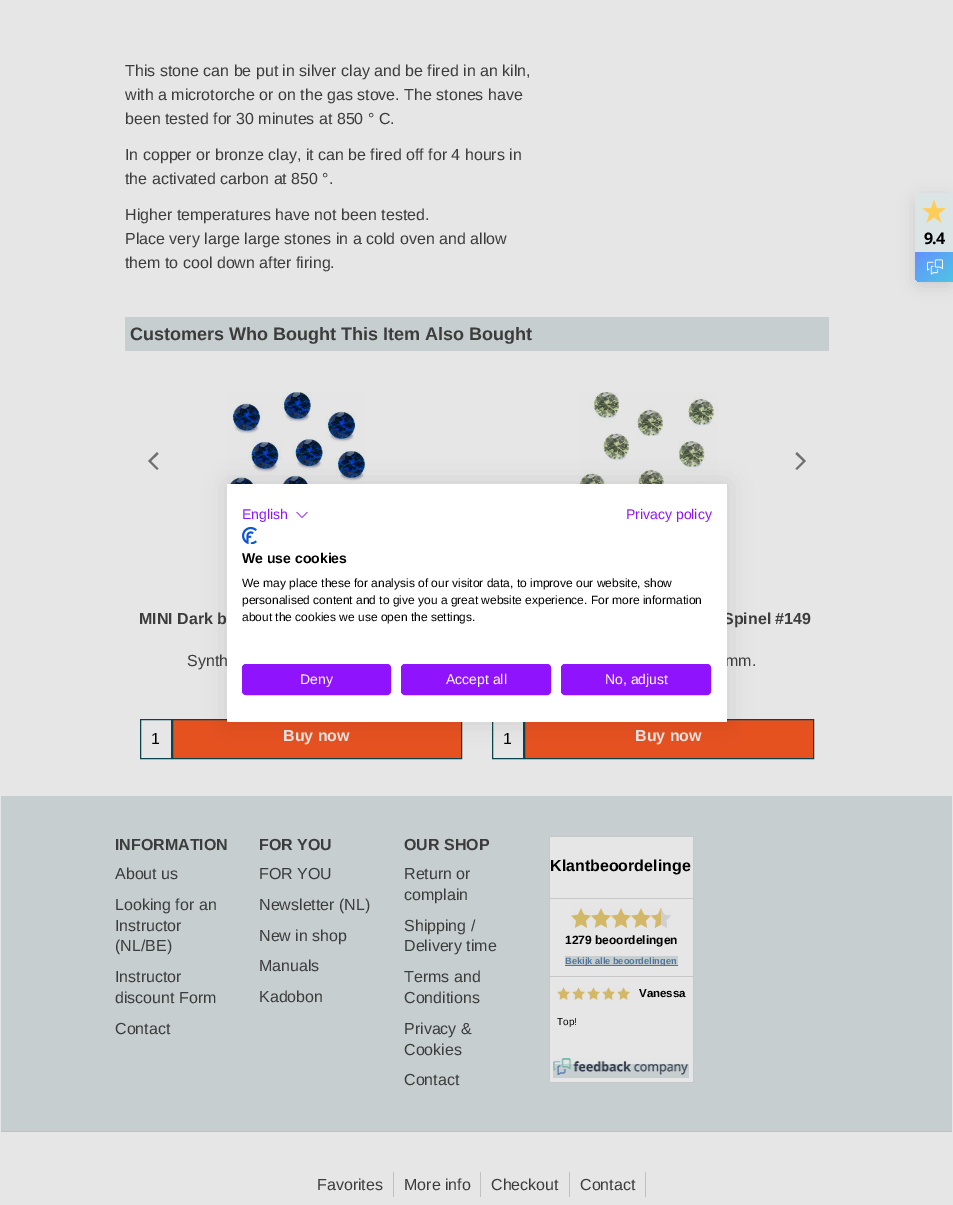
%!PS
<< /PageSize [953 1205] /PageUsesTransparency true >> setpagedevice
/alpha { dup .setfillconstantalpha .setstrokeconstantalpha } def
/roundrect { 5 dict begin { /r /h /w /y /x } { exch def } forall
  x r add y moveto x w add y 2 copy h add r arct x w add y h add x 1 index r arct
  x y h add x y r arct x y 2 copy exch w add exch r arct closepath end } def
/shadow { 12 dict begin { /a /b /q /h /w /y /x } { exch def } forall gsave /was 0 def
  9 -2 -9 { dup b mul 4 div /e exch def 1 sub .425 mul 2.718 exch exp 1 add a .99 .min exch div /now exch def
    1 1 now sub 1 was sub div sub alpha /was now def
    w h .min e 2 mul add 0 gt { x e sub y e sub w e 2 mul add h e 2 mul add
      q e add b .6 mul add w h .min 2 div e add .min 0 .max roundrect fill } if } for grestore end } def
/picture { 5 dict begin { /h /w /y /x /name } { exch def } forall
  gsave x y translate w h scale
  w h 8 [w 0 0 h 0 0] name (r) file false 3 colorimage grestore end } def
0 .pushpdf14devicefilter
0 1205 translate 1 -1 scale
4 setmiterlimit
0.902 setgray
0 0 953 1205 rectfill
/LiberationSans-Regular [16 0 0 -16 0 0] selectfont
0.235 setgray
125 76 moveto (This stone can be put in silver clay and be fired in an kiln,) show
125 100 moveto (with a microtorche or on the gas stove. The stones have) show
125 124 moveto (been tested for 30 minutes at 850 ° C.) show
125 160 moveto (In copper or bronze clay, it can be fired off for 4 hours in) show
125 184 moveto (the activated carbon at 850 °.) show
125 220 moveto (Higher temperatures have not been tested.) show
125 244 moveto (Place very large large stones in a cold oven and allow) show
125 268 moveto (them to cool down after firing.) show
0.776 0.808 0.812 setrgbcolor
125 317 704 34 rectfill
/LiberationSans-Bold [18 0 0 -18 0 0] selectfont
0.235 setgray
130 340 moveto (Customers Who Bought This Item Also Bought) show
0.435 setgray
newpath 157 470 moveto 158.5 468.5 lineto 151 461 lineto 158.5 454 lineto 157 452 lineto 148 461 lineto closepath fill
newpath 797 452 moveto 795.5 454 lineto 803 461 lineto 795.5 468.5 lineto 797 470 lineto 806 461 lineto closepath fill
(img1.rgb) 227 392 139 92 picture
/LiberationSans-Bold [16 0 0 -16 0 0] selectfont
0.235 setgray
139 624 moveto (MINI Dark b) show
/LiberationSans-Regular [16 0 0 -16 0 0] selectfont
187 666 moveto (Synth) show
0.043 0.267 0.302 setrgbcolor
140.5 719.5 31 39 rectstroke
0 setgray
151 744 moveto (1) show
0.902 0.318 0.125 setrgbcolor
newpath 172.5 719.5 moveto 461.5 719.5 lineto 461.5 758.5 lineto 172.5 758.5 lineto closepath gsave fill grestore
0.043 0.267 0.302 setrgbcolor
stroke
/LiberationSans-Bold [16 0 0 -16 0 0] selectfont
0.902 setgray
283 741 moveto (Buy now) show
(img2.rgb) 579 392 139 92 picture
0.235 setgray
723 624 moveto (Spinel #149) show
/LiberationSans-Regular [16 0 0 -16 0 0] selectfont
725 666 moveto (mm.) show
0.043 0.267 0.302 setrgbcolor
492.5 719.5 31 39 rectstroke
0 setgray
503 744 moveto (1) show
0.902 0.318 0.125 setrgbcolor
newpath 524.5 719.5 moveto 813.5 719.5 lineto 813.5 758.5 lineto 524.5 758.5 lineto closepath gsave fill grestore
0.043 0.267 0.302 setrgbcolor
stroke
/LiberationSans-Bold [16 0 0 -16 0 0] selectfont
0.902 setgray
635 741 moveto (Buy now) show
0.118 setgray
915 197 38 89 6 8 0.12 shadow
0.863 0.898 0.902 setrgbcolor
915 193 38 89 rectfill
(img3.rgb) 922 199 24 24 picture
/OpenSans-Bold [16 0 0 -16 0 0] selectfont
0 setgray
924 244 moveto -1 0 (9.4) ashow
gsave newpath 915 252 moveto 953 252 lineto 953 282 lineto 921 282 lineto 917.5 282 915 279.5 915 276 curveto closepath clip newpath
<< /ShadingType 2 /ColorSpace /DeviceRGB /Coords [918 249 950 285] /Extend [true true] /Function << /FunctionType 2 /Domain [0 1] /C0 [0.396 0.565 1] /C1 [0.306 0.773 0.894] /N 1 >> >> shfill grestore
(img4.rgb) 927 259 16 16 picture
0.776 0.808 0.812 setrgbcolor
1 796 951 335 rectfill
0.78 setgray
549 836 145 247 rectfill
0.902 setgray
550 837 143 245 rectfill
0.78 setgray
550 898 143 1 rectfill
/LiberationSans-Bold [16 0 0 -16 0 0] selectfont
0 setgray
550 871 moveto (Klantbeoordelinge) show
(img5.rgb) 571 908 20 20 picture
(img5.rgb) 591 908 20 20 picture
(img5.rgb) 611 908 20 20 picture
(img5.rgb) 631 908 20 20 picture
(img6.rgb) 651 908 20 20 picture
/LiberationSans-Bold [12 0 0 -12 0 0] selectfont
565 944 moveto (1279 beoordelingen) show
0.78 setgray
550 976 143 1 rectfill
0.776 0.808 0.812 setrgbcolor
565 956 113 9 rectfill
0.314 0.459 0.616 setrgbcolor
565 965 113 1 rectfill
/LiberationSans-Bold [9.25 0 0 -9.25 0 0] selectfont
565 964 moveto (Bekijk alle beoordelingen) show
(img7.rgb) 557 987 13 13 picture
(img7.rgb) 572 987 13 13 picture
(img8.rgb) 587 987 13 13 picture
(img8.rgb) 602 987 13 13 picture
(img7.rgb) 617 987 13 13 picture
/LiberationSans-Bold [11.5 0 0 -11.5 0 0] selectfont
0 setgray
639 997 moveto (Vanessa) show
/LiberationSans-Regular [10 0 0 -10 0 0] selectfont
557 1025 moveto (Top!) show
0.776 0.808 0.812 setrgbcolor
553 1064 136 14 rectfill
(img9.rgb) 553 1058 136 17 picture
/LiberationSans-Bold [16 0 0 -16 0 0] selectfont
0.235 setgray
115 850 moveto (INFORMATION) show
/LiberationSans-Regular [16 0 0 -16 0 0] selectfont
115 879 moveto (About us) show
115 910 moveto (Looking for an) show
115 931 moveto (Instructor) show
115 951 moveto (\(NL/BE\)) show
115 982 moveto (Instructor) show
115 1003 moveto (discount Form) show
115 1034 moveto (Contact) show
/LiberationSans-Bold [16 0 0 -16 0 0] selectfont
259 850 moveto (FOR YOU) show
/LiberationSans-Regular [16 0 0 -16 0 0] selectfont
259 879 moveto (FOR YOU) show
259 910 moveto (Newsletter \(NL\)) show
259 941 moveto (New in shop) show
259 971 moveto (Manuals) show
259 1002 moveto (Kadobon) show
/LiberationSans-Bold [16 0 0 -16 0 0] selectfont
404 850 moveto (OUR SHOP) show
/LiberationSans-Regular [16 0 0 -16 0 0] selectfont
404 879 moveto (Return or) show
404 900 moveto (complain) show
404 931 moveto (Shipping /) show
404 951 moveto (Delivery time) show
404 982 moveto (Terms and) show
404 1003 moveto (Conditions) show
404 1034 moveto (Privacy &) show
404 1055 moveto (Cookies) show
404 1085 moveto (Contact) show
0.753 setgray
1 1131 951 1 rectfill
0.235 setgray
317 1190 moveto (Favorites) show
0.753 setgray
393 1172 1 25 rectfill
0.235 setgray
404 1190 moveto (More info) show
0.753 setgray
480 1172 1 25 rectfill
0.235 setgray
491 1190 moveto (Checkout) show
0.753 setgray
569 1172 1 25 rectfill
0.235 setgray
580 1190 moveto (Contact) show
0.753 setgray
645 1172 1 25 rectfill
0 setgray
227 484 500 238 0 12 0.1 shadow
1 setgray
227 484 500 238 rectfill
/LiberationSans-Regular [14 0 0 -14 0 0] selectfont
0.565 0.075 0.996 setrgbcolor
242 519 moveto (English) show
(img10.rgb) 296 511 12 7 picture
626 519 moveto (Privacy policy) show
(img11.rgb) 242 527 15 17 picture
/LiberationSans-Bold [14 0 0 -14 0 0] selectfont
0 setgray
242 563 moveto (We use cookies) show
/LiberationSans-Regular [12 0 0 -12 0 0] selectfont
242 587 moveto (We may place these for analysis of our visitor data, to improve our website, show) show
242 604 moveto (personalised content and to give you a great website experience. For more information) show
242 621 moveto (about the cookies we use open the settings.) show
0.565 0.075 0.996 setrgbcolor
242.5 664.5 148 30 3.5 roundrect gsave fill grestore
stroke
/LiberationSans-Regular [14 0 0 -14 0 0] selectfont
1 setgray
300 684 moveto (Deny) show
0.565 0.075 0.996 setrgbcolor
401.5 664.5 149 30 3.5 roundrect gsave fill grestore
stroke
1 setgray
446 684 moveto (Accept all) show
0.565 0.075 0.996 setrgbcolor
561.5 664.5 149 30 3.5 roundrect gsave fill grestore
stroke
1 setgray
605 684 moveto (No, adjust) show
.poppdf14devicefilter showpage
